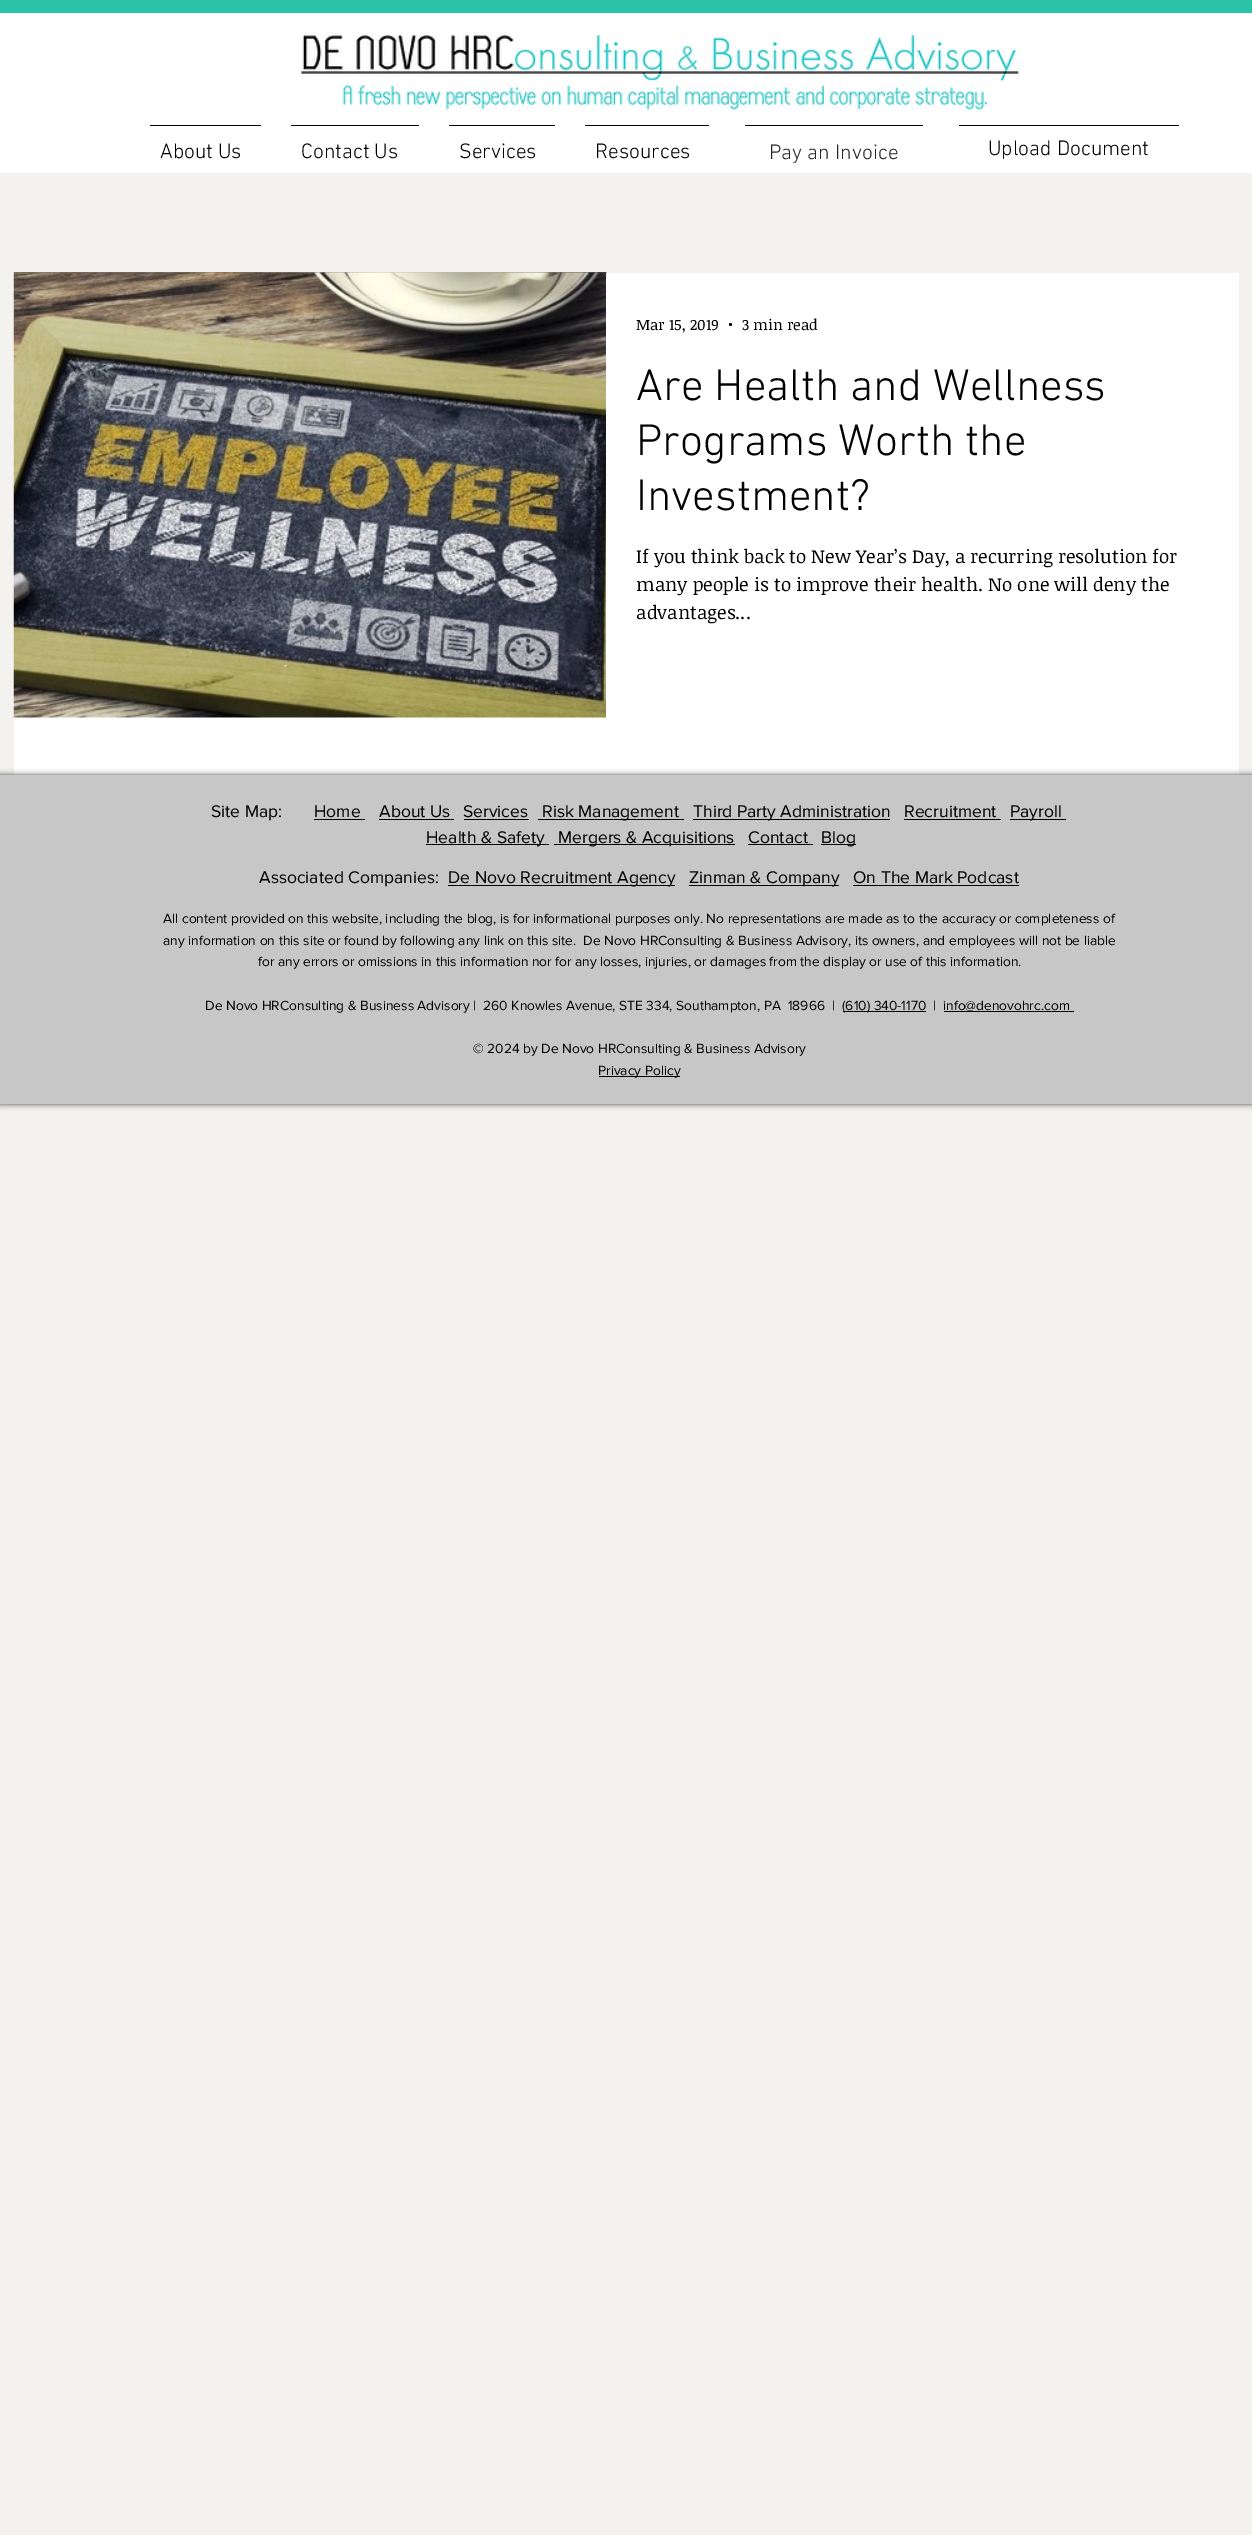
%!PS
<< /PageSize [1252 2535] /PageUsesTransparency true >> setpagedevice
/alpha { dup .setfillconstantalpha .setstrokeconstantalpha } def
/roundrect { 5 dict begin { /r /h /w /y /x } { exch def } forall
  x r add y moveto x w add y 2 copy h add r arct x w add y h add x 1 index r arct
  x y h add x y r arct x y 2 copy exch w add exch r arct closepath end } def
/shadow { 12 dict begin { /a /b /q /h /w /y /x } { exch def } forall gsave /was 0 def
  9 -2 -9 { dup b mul 4 div /e exch def 1 sub .425 mul 2.718 exch exp 1 add a .99 .min exch div /now exch def
    1 1 now sub 1 was sub div sub alpha /was now def
    w h .min e 2 mul add 0 gt { x e sub y e sub w e 2 mul add h e 2 mul add
      q e add b .6 mul add w h .min 2 div e add .min 0 .max roundrect fill } if } for grestore end } def
/picture { 5 dict begin { /h /w /y /x /name } { exch def } forall
  gsave x y translate w h scale
  w h 8 [w 0 0 h 0 0] name (r) file false 3 colorimage grestore end } def
0 .pushpdf14devicefilter
0 2535 translate 1 -1 scale
4 setmiterlimit
0.953 0.949 0.933 setrgbcolor
0 0 1252 2535 rectfill
1 setgray
0 13 1252 160 rectfill
0.169 0.765 0.655 setrgbcolor
0 0 1252 13 rectfill
(img1.rgb) 301 32 718 80 picture
0 setgray
150 125 111 1 rectfill
/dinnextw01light-Light [21.25 0 0 -21.25 0 0] selectfont
160 158 moveto (About Us) show
291 125 128 1 rectfill
301 158 moveto (Contact Us) show
449 125 106 1 rectfill
459 158 moveto (Services) show
585 125 124 1 rectfill
595 158 moveto (Resources) show
745 125 178 1 rectfill
0.157 0.149 0.149 setrgbcolor
769 159 moveto (Pay an Invoice) show
0 setgray
959 125 220 1 rectfill
988 155 moveto (Upload Document) show
1 setgray
14 717 1225 58 rectfill
(img3.rgb) 14 272 593 1 picture
(img2.rgb) 13 272 594 446 picture
606 273 633 445 rectfill
/NoticiaText-Regular [15 0 0 -15 0 0] selectfont
0 setgray
636 330 moveto (Mar 15, 2019) show
newpath 730.5 324.5 1.5 0 360 arc closepath fill
742 330 moveto (3 min read) show
/dinnextw01light-Light [45 0 0 -45 0 0] selectfont
636 400 moveto (Are Health and Wellness) show
636 455 moveto (Programs Worth the) show
636 510 moveto (Investment?) show
/NoticiaText-Regular [18.75 0 0 -18.75 0 0] selectfont
636 563 moveto (If you think back to New Year’s Day, a recurring resolution for) show
636 591 moveto (many people is to improve their health. No one will deny the) show
636 619 moveto (advantages...) show
0 775 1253 329 0 3 0.7 shadow
0.78 setgray
0 775 1252 329 rectfill
/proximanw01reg-Regular [17.5 0 0 -17.5 0 0] selectfont
0 setgray
211 817 moveto (Site Map:) show
314 817 moveto (Home) show
314 819 51 1 rectfill
379 817 moveto (About Us) show
379 819 75 1 rectfill
463 817 moveto (Services) show
464 819 65 1 rectfill
538 819 146 1 rectfill
542 817 moveto (Risk Management) show
693 819 197 1 rectfill
693 817 moveto (Third Party Administration) show
904 817 moveto (Recruitment) show
904 819 97 1 rectfill
1010 819 56 1 rectfill
1010 817 moveto (Payroll) show
426 844 123 1 rectfill
426 843 moveto (Health & Safety) show
554 844 181 1 rectfill
558 843 moveto (Mergers & Acquisitions) show
748 843 moveto (Contact) show
748 844 65 1 rectfill
821 844 35 1 rectfill
821 843 moveto (Blog) show
259 883 moveto (Associated Companies:) show
448 885 227 1 rectfill
448 883 moveto (De Novo Recruitment Agency) show
689 885 150 1 rectfill
689 883 moveto (Zinman & Company) show
853 883 moveto (On The Mark Podcast) show
853 885 166 1 rectfill
/proximanw01reg-Regular [13.75 0 0 -13.75 0 0] selectfont
163 923 moveto (All content provided on this website, including the blog, is for informational purposes only. No representations are made as to the accuracy or completeness of) show
163 945 moveto (any information on this site or found by following any link on this site.  De Novo HRConsulting & Business Advisory, its owners, and employees will not be liable) show
258 966 moveto (for any errors or omissions in this information nor for any losses, injuries, or damages from the display or use of this information.) show
205 1010 moveto (De Novo HRConsulting & Business Advisory |  260 Knowles Avenue, STE 334, Southampton, PA  18966  |) show
843 1011 83 1 rectfill
842 1010 moveto (\(610\) 340-1170) show
933 1010 moveto (|) show
943 1010 moveto (info@denovohrc.com) show
944 1011 130 1 rectfill
473 1053 moveto (© 2024 by De Novo HRConsulting & Business Advisory) show
599 1076 81 1 rectfill
598 1075 moveto (Privacy Policy) show
.poppdf14devicefilter showpage
